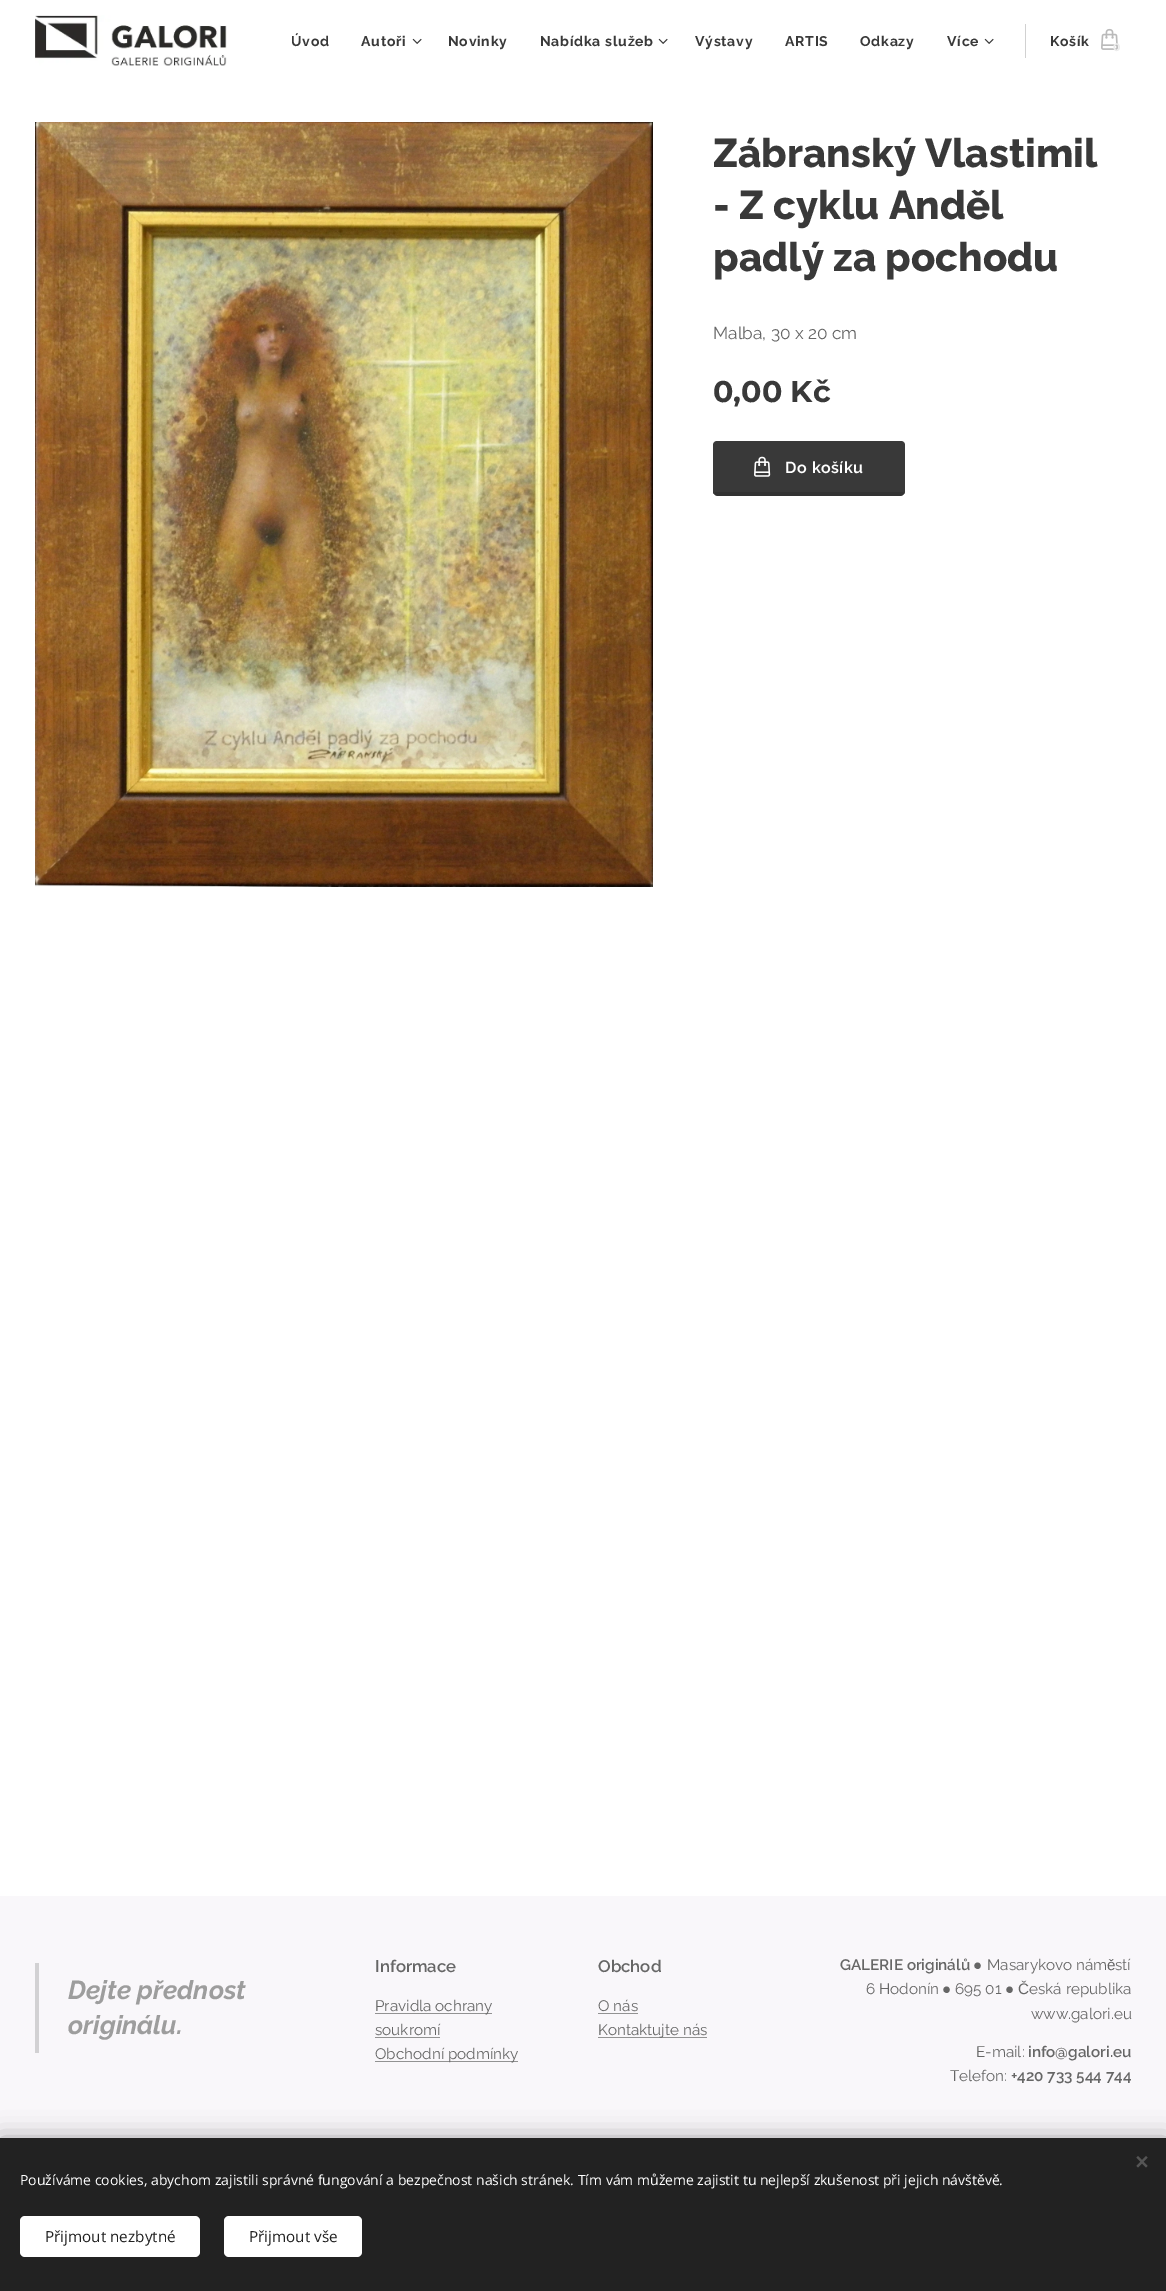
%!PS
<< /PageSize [1166 2291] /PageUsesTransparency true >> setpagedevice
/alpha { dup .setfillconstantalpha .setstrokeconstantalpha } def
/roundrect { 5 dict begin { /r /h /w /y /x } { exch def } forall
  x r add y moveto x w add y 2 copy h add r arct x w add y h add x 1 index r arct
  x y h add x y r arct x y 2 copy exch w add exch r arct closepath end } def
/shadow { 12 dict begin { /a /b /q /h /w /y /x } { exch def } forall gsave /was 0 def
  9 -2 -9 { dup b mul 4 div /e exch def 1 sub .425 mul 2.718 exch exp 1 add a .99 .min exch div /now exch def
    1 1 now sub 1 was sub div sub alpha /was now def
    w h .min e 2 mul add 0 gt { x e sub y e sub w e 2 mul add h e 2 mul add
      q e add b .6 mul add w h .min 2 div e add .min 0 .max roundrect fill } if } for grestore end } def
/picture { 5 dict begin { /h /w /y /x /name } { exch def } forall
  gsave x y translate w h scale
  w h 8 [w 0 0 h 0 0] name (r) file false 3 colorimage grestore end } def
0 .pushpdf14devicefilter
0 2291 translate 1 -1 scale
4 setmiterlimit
1 setgray
0 0 1166 2291 rectfill
(img1.rgb) 35 15 192 51 picture
/Raleway-Bold [14 0 0 -14 0 0] selectfont
0.224 setgray
291 46 moveto 0.75 0 (Úvod) ashow
361 46 moveto 0.75 0 (Autoři) ashow
(img2.rgb) 412 38 10 6 picture
448 46 moveto 0.75 0 (Novinky) ashow
540 46 moveto 0.75 0 (Nabídka služeb) ashow
(img2.rgb) 658 38 10 6 picture
695 46 moveto 0.75 0 (Výstavy) ashow
785 46 moveto 0.75 0 (ARTIS) ashow
860 46 moveto 0.75 0 (Odkazy) ashow
947 46 moveto 0.75 0 (Více) ashow
(img2.rgb) 984 38 10 6 picture
0.82 setgray
1025 24 1 34 rectfill
0.224 setgray
1050 46 moveto 0.75 0 (Košík) ashow
(img3.rgb) 1101 28 17 22 picture
/Montserrat-Bold [11 0 0 -11 0 0] selectfont
0.925 setgray
1113 51 moveto (0) show
(img4.rgb) 35 122 618 765 picture
/Raleway-ExtraBold [40 0 0 -40 0 0] selectfont
0.224 setgray
713 167 moveto (Zábranský Vlastimil) show
713 219 moveto (- Z cyklu Anděl) show
713 271 moveto (padlý za pochodu) show
/Raleway-Regular [17.25 0 0 -17.25 0 0] selectfont
0.4 setgray
713 339 moveto (Malba, 30 x 20 cm) show
/Montserrat-Bold [30 0 0 -30 0 0] selectfont
0.224 setgray
713 402 moveto (0,00 Kč) show
713 441 192 55 5 roundrect fill
newpath 718 441 moveto 716 441 715 442 714 442 curveto 716 444 lineto 718 443 lineto 900 443 lineto 902 444 lineto 904 442 lineto 903 442 902 441 900 441 curveto closepath fill
newpath 905 491 moveto 905 446 lineto 905 444 904 443 904 442 curveto 902 444 lineto 904 446 903 479 903 484 curveto 903 492 lineto 904 494 lineto closepath fill
0.12 alpha
0 setgray
newpath 718 496 moveto 900 496 lineto 902 496 903 495 904 494 curveto 903 492 lineto 839 492 lineto 718 492 lineto 715 492 lineto 714 494 lineto 715 495 716 496 718 496 curveto closepath fill
1 alpha
0.224 setgray
newpath 713 446 moveto 713 491 lineto 713 492 713 493 714 494 curveto 715 492 lineto 715 484 lineto 715 479 714 446 716 444 curveto 714 442 lineto 714 443 713 444 713 446 curveto closepath fill
(img5.rgb) 754 456 17 21 picture
/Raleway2-SemiBold [16 0 0 -16 0 0] selectfont
1 setgray
785 473 moveto 0.5 0 (Do košíku) ashow
0.976 0.969 0.98 setrgbcolor
0 1896 1166 242 rectfill
0.824 0.82 0.827 setrgbcolor
35 1963 4 90 rectfill
/Raleway-BoldItalic [26 0 0 -26 0 0] selectfont
0.616 setgray
68 1999 moveto (Dejte přednost) show
68 2034 moveto (originálu.) show
/Raleway-SemiBold [16.75 0 0 -16.75 0 0] selectfont
0.4 setgray
375 1972 moveto (Informace) show
0.573 setgray
375 2013 117 1 rectfill
/Raleway-Regular [15.25 0 0 -15.25 0 0] selectfont
0.4 setgray
375 2011 moveto (Pravidla ochrany) show
375 2035 moveto (soukromí) show
0.573 setgray
375 2037 65 1 rectfill
375 2061 143 1 rectfill
0.4 setgray
375 2059 moveto (Obchodní podmínky) show
/Raleway-SemiBold [16.75 0 0 -16.75 0 0] selectfont
598 1972 moveto (Obchod) show
/Raleway-Regular [15.25 0 0 -15.25 0 0] selectfont
598 2011 moveto (O nás) show
0.573 setgray
598 2013 40 1 rectfill
598 2037 109 1 rectfill
0.4 setgray
598 2035 moveto (Kontaktujte nás) show
/Raleway-SemiBold [15.25 0 0 -15.25 0 0] selectfont
840 1970 moveto (GALERIE originálů) show
/LiberationSans-Regular [15.25 0 0 -15.25 0 0] selectfont
973 1970 moveto (●) show
/Raleway-Regular [15.25 0 0 -15.25 0 0] selectfont
987 1970 moveto (Masarykovo nám) show
/LiberationSans-Regular [15.25 0 0 -15.25 0 0] selectfont
1107 1970 moveto (ě) show
/Raleway-Regular [15.25 0 0 -15.25 0 0] selectfont
1115 1970 moveto (stí) show
866 1994 moveto (6 Hodonín) show
/LiberationSans-Regular [15.25 0 0 -15.25 0 0] selectfont
942 1994 moveto (●) show
/Raleway-Regular [15.25 0 0 -15.25 0 0] selectfont
955 1994 moveto (695 01) show
/LiberationSans-Regular [15.25 0 0 -15.25 0 0] selectfont
1005 1994 moveto (●) show
1018 1994 moveto (Č) show
/Raleway-Regular [15.25 0 0 -15.25 0 0] selectfont
1029 1994 moveto (eská republika) show
1031 2019 moveto (www.galori.eu) show
976 2057 moveto (E-mail:) show
/Raleway-SemiBold [15.25 0 0 -15.25 0 0] selectfont
1028 2057 moveto (info@galori.eu) show
/Raleway-Regular [15.25 0 0 -15.25 0 0] selectfont
950 2081 moveto (Telefon:) show
/Raleway-SemiBold [15.25 0 0 -15.25 0 0] selectfont
1011 2081 moveto (+420 733 544 744) show
0 setgray
0 2138 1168 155 0 12.5 0.33 shadow
0.133 setgray
0 2138 1166 153 rectfill
0.333 setgray
newpath 1136.5 2166 moveto 1146 2156 lineto 1147.5 2157.5 lineto 1138 2167.5 lineto closepath fill
newpath 1138 2156 moveto 1147.5 2166 lineto 1146 2167.5 lineto 1136.5 2157.5 lineto closepath fill
/OpenSans-Regular [14 0 0 -14 0 0] selectfont
1 setgray
20 2185 moveto (Používáme cookies, abychom zajistili správné fungování a bezpečnost našich stránek. Tím vám můžeme zajistit tu nejlepší zkušenost při jejich návštěvě.) show
20 2216 180 41 5 roundrect fill
/OpenSans-Regular [15.25 0 0 -15.25 0 0] selectfont
0.133 setgray
45 2242 moveto (Přijmout nezbytné) show
1 setgray
224 2216 138 41 5 roundrect fill
0.133 setgray
249 2242 moveto (Přijmout vše) show
.poppdf14devicefilter showpage
